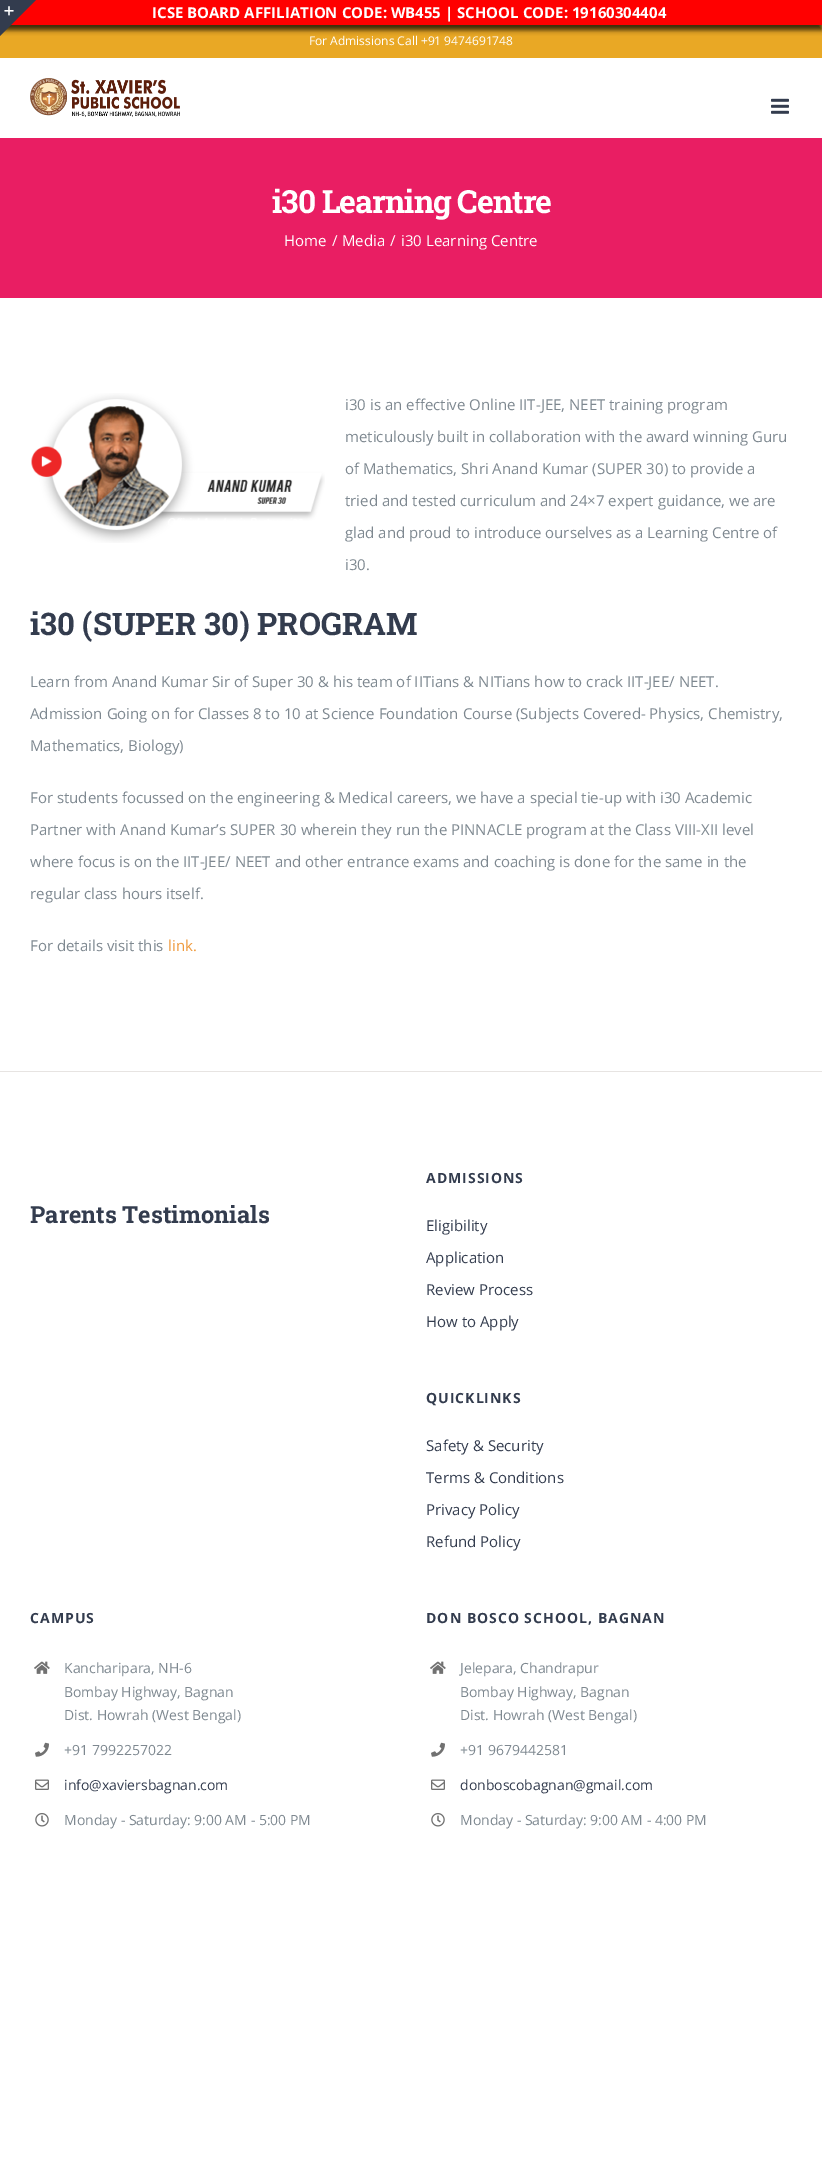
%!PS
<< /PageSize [822 2164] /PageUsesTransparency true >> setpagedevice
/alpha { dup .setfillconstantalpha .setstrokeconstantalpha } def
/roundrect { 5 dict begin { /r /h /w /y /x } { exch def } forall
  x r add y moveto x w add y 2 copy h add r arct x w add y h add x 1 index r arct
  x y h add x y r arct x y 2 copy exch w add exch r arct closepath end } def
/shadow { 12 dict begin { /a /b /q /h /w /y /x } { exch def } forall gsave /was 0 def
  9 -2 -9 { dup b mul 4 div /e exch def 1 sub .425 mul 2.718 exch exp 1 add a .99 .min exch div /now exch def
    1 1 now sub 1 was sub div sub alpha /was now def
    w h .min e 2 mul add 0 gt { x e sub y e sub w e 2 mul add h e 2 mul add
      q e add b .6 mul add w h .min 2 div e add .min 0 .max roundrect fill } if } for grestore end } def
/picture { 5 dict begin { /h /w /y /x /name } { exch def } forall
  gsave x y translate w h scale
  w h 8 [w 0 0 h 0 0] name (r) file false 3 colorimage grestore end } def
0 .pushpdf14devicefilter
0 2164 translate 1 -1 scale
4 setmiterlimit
1 setgray
0 0 822 2164 rectfill
0.914 0.659 0.145 setrgbcolor
0 25 822 33 rectfill
0 setgray
0 5 822 25 0 2.5 0.75 shadow
1 0 0 setrgbcolor
11 0 811 25 rectfill
/OpenSans-Bold [15 0 0 -15 0 0] selectfont
1 setgray
152 18 moveto (ICSE BOARD AFFILIATION CODE: WB455 | SCHOOL CODE: 19160304404) show
0.2 0.235 0.306 setrgbcolor
newpath 0 0 moveto 36 0 lineto 0 36 lineto closepath fill
(img1.rgb) 4 6 10 10 picture
/OpenSans-Regular [12 0 0 -12 0 0] selectfont
1 setgray
309 45 moveto (For Admissions Call +91 9474691748) show
(img2.rgb) 30 78 150 39 picture
(img3.rgb) 771 98 18 16 picture
0.914 0.118 0.388 setrgbcolor
0 138 822 160 rectfill
/RobotoSlab-Bold [31.9 0 0 -31.9 0 0] selectfont
1 setgray
272 213 moveto -1 0 (i30 Learning Centre) ashow
/OpenSans-Regular [15 0 0 -15 0 0] selectfont
284 246 moveto (Home) show
332 246 moveto (/) show
342 246 moveto (Media) show
390 246 moveto (/) show
401 246 moveto (i30 Learning Centre) show
(img4.rgb) 31 393 294 150 picture
0.494 0.533 0.565 setrgbcolor
345 410 moveto (i30 is an effective Online IIT-JEE, NEET training program) show
345 442 moveto (meticulously built in collaboration with the award winning Guru) show
345 474 moveto (of Mathematics, Shri Anand Kumar \(SUPER 30\) to provide a) show
345 506 moveto (tried and tested curriculum and 24×7 expert guidance, we are) show
345 538 moveto (glad and proud to introduce ourselves as a Learning Centre of) show
345 570 moveto (i30.) show
/RobotoSlab-Bold [31.1 0 0 -31.1 0 0] selectfont
0.2 0.235 0.306 setrgbcolor
30 635 moveto (i30 \(SUPER 30\) PROGRAM) show
/OpenSans-Regular [15 0 0 -15 0 0] selectfont
0.494 0.533 0.565 setrgbcolor
30 687 moveto (Learn from Anand Kumar Sir of Super 30 & his team of IITians & NITians how to crack IIT-JEE/ NEET.) show
30 719 moveto (Admission Going on for Classes 8 to 10 at Science Foundation Course \(Subjects Covered- Physics, Chemistry,) show
30 751 moveto (Mathematics, Biology\)) show
30 803 moveto (For students focussed on the engineering & Medical careers, we have a special tie-up with i30 Academic) show
30 835 moveto (Partner with Anand Kumar’s SUPER 30 wherein they run the PINNACLE program at the Class VIII-XII level) show
30 867 moveto (where focus is on the IIT-JEE/ NEET and other entrance exams and coaching is done for the same in the) show
30 899 moveto (regular class hours itself.) show
30 951 moveto (For details visit this) show
0.937 0.604 0.239 setrgbcolor
168 951 moveto (link.) show
0.906 0.894 0.886 setrgbcolor
0 1071 822 1 rectfill
/RobotoSlab-Bold [23.6 0 0 -23.6 0 0] selectfont
0.2 0.235 0.306 setrgbcolor
30 1223 moveto (Parents Testimonials) show
/OpenSans-Bold [14 0 0 -14 0 0] selectfont
426 1183 moveto 1 0 (ADMISSIONS) ashow
/OpenSans-Regular [15 0 0 -15 0 0] selectfont
426 1231 moveto (Eligibility) show
426 1263 moveto (Application) show
426 1295 moveto (Review Process) show
426 1327 moveto (How to Apply) show
/OpenSans-Bold [14 0 0 -14 0 0] selectfont
426 1403 moveto 1 0 (QUICKLINKS) ashow
/OpenSans-Regular [15 0 0 -15 0 0] selectfont
426 1451 moveto (Safety & Security) show
426 1483 moveto (Terms & Conditions) show
426 1515 moveto (Privacy Policy) show
426 1547 moveto (Refund Policy) show
/OpenSans-Bold [14 0 0 -14 0 0] selectfont
30 1623 moveto 1 0 (CAMPUS) ashow
(img5.rgb) 34 1661 16 13 picture
/OpenSans-Regular [14 0 0 -14 0 0] selectfont
0.494 0.533 0.565 setrgbcolor
64 1673 moveto (Kancharipara, NH-6) show
64 1697 moveto (Bombay Highway, Bagnan) show
64 1720 moveto (Dist. Howrah \(West Bengal\)) show
(img6.rgb) 35 1742 14 15 picture
64 1755 moveto (+91 7992257022) show
(img7.rgb) 35 1779 14 11 picture
0.2 0.235 0.306 setrgbcolor
64 1790 moveto (info@xaviersbagnan.com) show
(img8.rgb) 35 1813 14 14 picture
0.494 0.533 0.565 setrgbcolor
64 1825 moveto (Monday - Saturday: 9:00 AM - 5:00 PM) show
/OpenSans-Bold [14 0 0 -14 0 0] selectfont
0.2 0.235 0.306 setrgbcolor
426 1623 moveto 1 0 (DON BOSCO SCHOOL, BAGNAN) ashow
(img5.rgb) 430 1661 16 13 picture
/OpenSans-Regular [14 0 0 -14 0 0] selectfont
0.494 0.533 0.565 setrgbcolor
460 1673 moveto (Jelepara, Chandrapur) show
460 1697 moveto (Bombay Highway, Bagnan) show
460 1720 moveto (Dist. Howrah \(West Bengal\)) show
(img6.rgb) 431 1742 14 15 picture
460 1755 moveto (+91 9679442581) show
(img7.rgb) 431 1779 14 11 picture
0.2 0.235 0.306 setrgbcolor
460 1790 moveto (donboscobagnan@gmail.com) show
(img8.rgb) 431 1813 14 14 picture
0.494 0.533 0.565 setrgbcolor
460 1825 moveto (Monday - Saturday: 9:00 AM - 4:00 PM) show
.poppdf14devicefilter showpage
